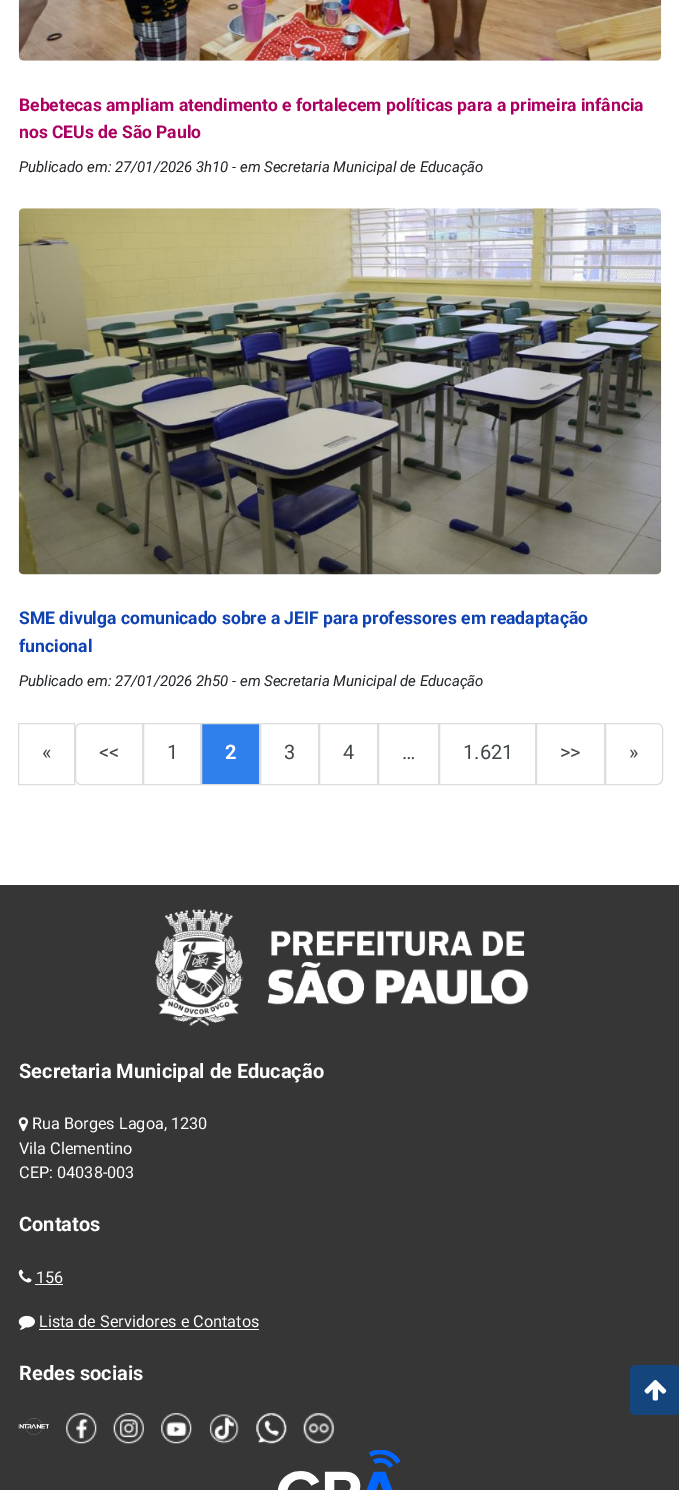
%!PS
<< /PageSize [679 1490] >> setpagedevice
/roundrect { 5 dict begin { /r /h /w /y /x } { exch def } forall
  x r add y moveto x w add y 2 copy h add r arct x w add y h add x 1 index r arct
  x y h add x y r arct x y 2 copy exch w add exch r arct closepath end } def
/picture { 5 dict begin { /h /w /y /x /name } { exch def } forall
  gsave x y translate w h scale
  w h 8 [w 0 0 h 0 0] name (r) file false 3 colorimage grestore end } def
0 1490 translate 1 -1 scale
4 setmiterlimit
1 setgray
0 0 679 1490 rectfill
(img1.rgb) 18 0 644 61 picture
/Roboto-Bold [17.5 0 0 -17.5 0 0] selectfont
0.671 0 0.38 setrgbcolor
19 111 moveto (Bebetecas ampliam atendimento e fortalecem políticas para a primeira infância) show
19 138 moveto (nos CEUs de São Paulo) show
/Roboto-Italic [15 0 0 -15 0 0] selectfont
0.129 0.145 0.161 setrgbcolor
19 172 moveto (Publicado em: 27/01/2026 3h10 - em Secretaria Municipal de Educação) show
(img2.rgb) 18 208 644 367 picture
/Roboto-Bold [17.5 0 0 -17.5 0 0] selectfont
0.059 0.259 0.698 setrgbcolor
19 624 moveto (SME divulga comunicado sobre a JEIF para professores em readaptação) show
19 652 moveto (funcional) show
/Roboto-Italic [15 0 0 -15 0 0] selectfont
0.129 0.145 0.161 setrgbcolor
19 686 moveto (Publicado em: 27/01/2026 2h50 - em Secretaria Municipal de Educação) show
0.867 setgray
18.5 723.5 56 61 rectstroke
/Roboto-Regular [20 0 0 -20 0 0] selectfont
0.259 0.278 0.29 setrgbcolor
42 759 moveto («) show
0.867 setgray
newpath 81 723.5 moveto 142.5 723.5 lineto 142.5 784.5 lineto 81 784.5 lineto 78 784.5 75.5 782 75.5 779 curveto 75.5 729 lineto 75.5 726 78 723.5 81 723.5 curveto closepath stroke
0.259 0.278 0.29 setrgbcolor
99 759 moveto (<<) show
0.867 setgray
143.5 723.5 57 61 rectstroke
0.259 0.278 0.29 setrgbcolor
167 759 moveto (1) show
0.184 0.502 0.929 setrgbcolor
newpath 201.5 723.5 moveto 259.5 723.5 lineto 259.5 784.5 lineto 201.5 784.5 lineto closepath gsave fill grestore
0.867 setgray
stroke
/Roboto-Bold [20 0 0 -20 0 0] selectfont
1 setgray
225 759 moveto (2) show
0.867 setgray
260.5 723.5 58 61 rectstroke
/Roboto-Regular [20 0 0 -20 0 0] selectfont
0.259 0.278 0.29 setrgbcolor
284 759 moveto (3) show
0.867 setgray
319.5 723.5 58 61 rectstroke
0.259 0.278 0.29 setrgbcolor
343 759 moveto (4) show
0.867 setgray
378.5 723.5 60 61 rectstroke
0.259 0.278 0.29 setrgbcolor
402 759 moveto (…) show
0.867 setgray
439.5 723.5 96 61 rectstroke
0.259 0.278 0.29 setrgbcolor
463 759 moveto (1.621) show
0.867 setgray
536.5 723.5 68 61 rectstroke
0.259 0.278 0.29 setrgbcolor
560 759 moveto (>>) show
0.867 setgray
newpath 605.5 723.5 moveto 657 723.5 lineto 660 723.5 662.5 726 662.5 729 curveto 662.5 779 lineto 662.5 782 660 784.5 657 784.5 curveto 605.5 784.5 lineto closepath stroke
0.259 0.278 0.29 setrgbcolor
629 759 moveto (») show
0.212 setgray
0 885 679 605 rectfill
(img3.rgb) 155 909 374 117 picture
/Roboto-Bold [20 0 0 -20 0 0] selectfont
1 setgray
19 1078 moveto (Secretaria Municipal de Educação) show
(img4.rgb) 18 1117 10 15 picture
/Roboto-Regular [16.25 0 0 -16.25 0 0] selectfont
32 1129 moveto (Rua Borges Lagoa, 1230) show
19 1154 moveto (Vila Clementino) show
19 1178 moveto (CEP: 04038-003) show
/Roboto-Bold [20 0 0 -20 0 0] selectfont
19 1231 moveto (Contatos) show
(img5.rgb) 18 1269 14 14 picture
/Roboto-Regular [16.25 0 0 -16.25 0 0] selectfont
36 1283 moveto (156) show
35 1284 28 1 rectfill
(img6.rgb) 18 1315 17 15 picture
39 1327 moveto (Lista de Servidores e Contatos) show
39 1329 220 1 rectfill
/Roboto-Bold [20 0 0 -20 0 0] selectfont
19 1380 moveto (Redes sociais) show
(img7.rgb) 18 1418 31 17 picture
(img8.rgb) 66 1413 31 31 picture
(img9.rgb) 113 1413 31 31 picture
(img10.rgb) 161 1413 31 31 picture
(img11.rgb) 209 1414 30 30 picture
(img12.rgb) 256 1413 31 31 picture
(img13.rgb) 303 1413 31 31 picture
(img14.rgb) 278 1450 123 40 picture
0.078 0.271 0.486 setrgbcolor
630 1365 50 50 5 roundrect fill
(img15.rgb) 644 1380 23 21 picture
showpage
